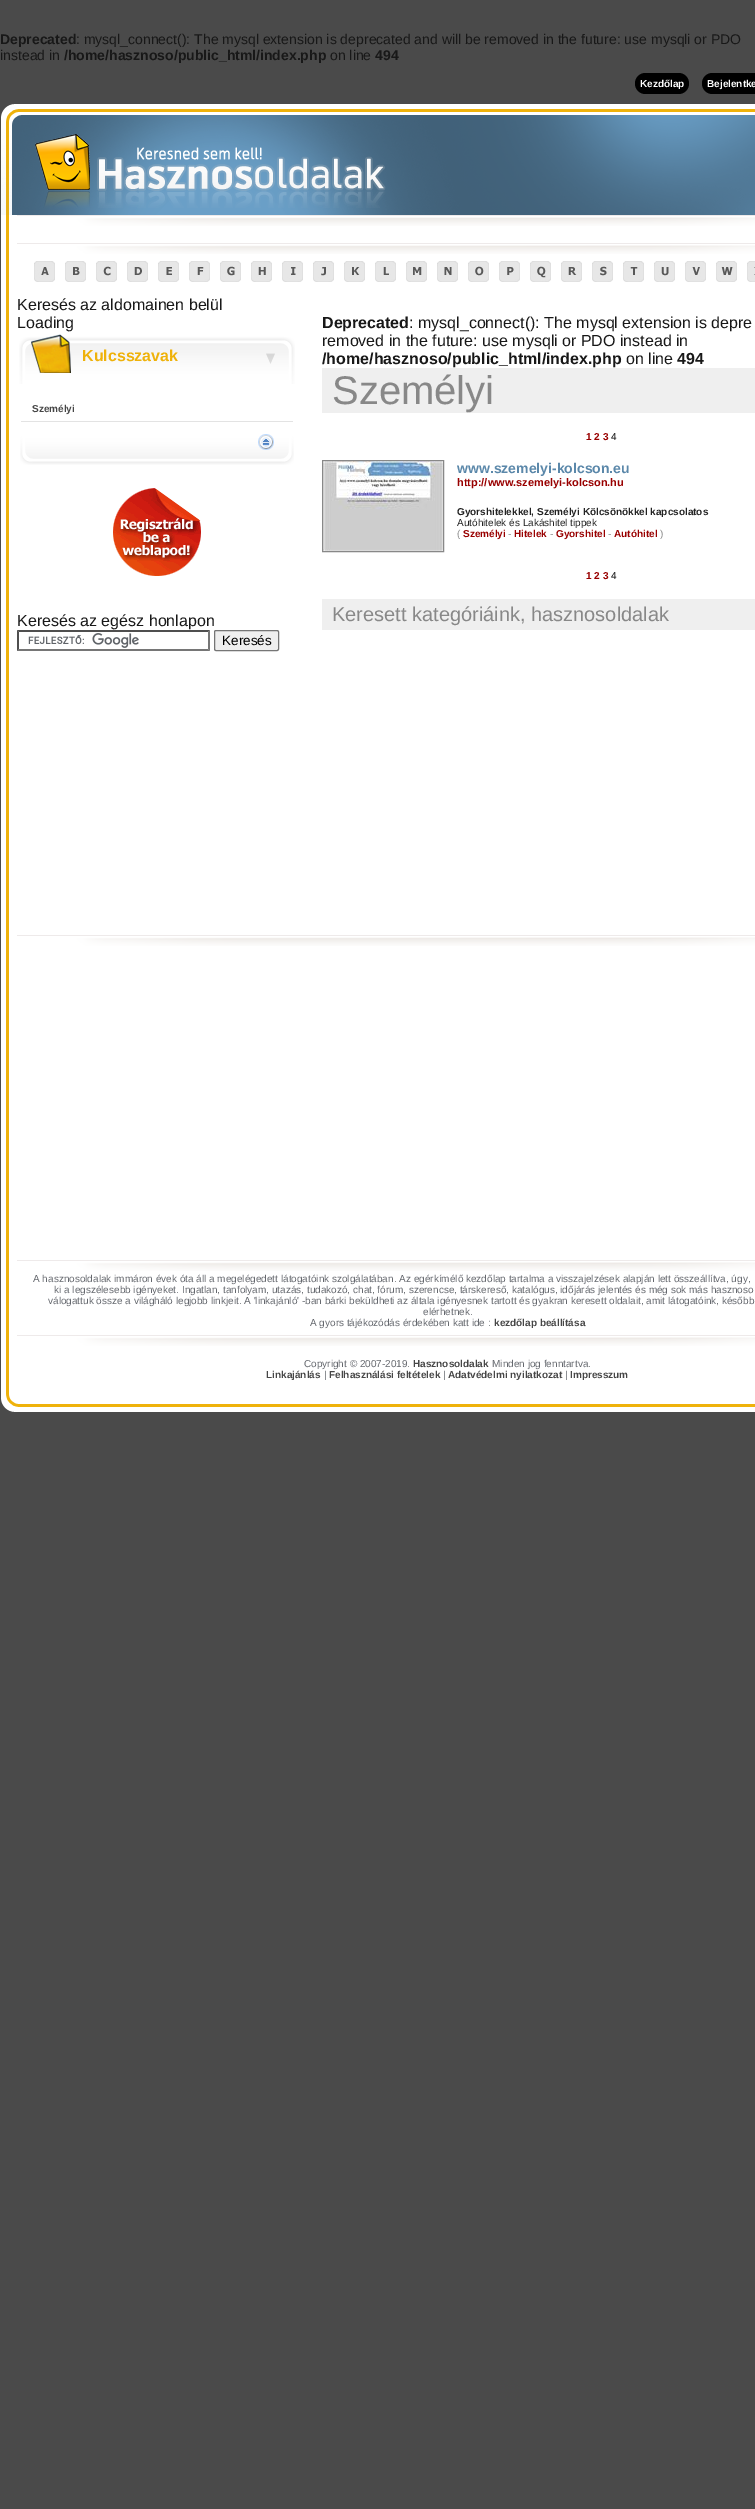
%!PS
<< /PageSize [755 2509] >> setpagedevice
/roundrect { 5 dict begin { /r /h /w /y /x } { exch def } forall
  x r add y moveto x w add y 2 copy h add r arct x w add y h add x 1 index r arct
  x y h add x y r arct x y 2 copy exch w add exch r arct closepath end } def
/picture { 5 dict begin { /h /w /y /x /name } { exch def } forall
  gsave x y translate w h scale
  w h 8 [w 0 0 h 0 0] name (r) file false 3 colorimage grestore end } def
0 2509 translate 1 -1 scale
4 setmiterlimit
0.29 setgray
0 0 755 2509 rectfill
/LiberationSans-Bold [14 0 0 -14 0 0] selectfont
0.094 setgray
0 44 moveto (Deprecated) show
/LiberationSans-Regular [14 0 0 -14 0 0] selectfont
76 44 moveto (: mysql_connect\(\): The mysql extension is deprecated and will be removed in the future: use mysqli or PDO) show
0 60 moveto (instead in) show
/LiberationSans-Bold [14 0 0 -14 0 0] selectfont
64 60 moveto (/home/hasznoso/public_html/index.php) show
/LiberationSans-Regular [14 0 0 -14 0 0] selectfont
330 60 moveto (on line) show
/LiberationSans-Bold [14 0 0 -14 0 0] selectfont
375 60 moveto (494) show
0 setgray
635 73 54 21 10.5 roundrect fill
/LiberationSans-Bold [10 0 0 -10 0 0] selectfont
1 setgray
640 87 moveto (Kezdőlap) show
0 setgray
702 73 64 21 10.5 roundrect fill
1 setgray
707 87 moveto (Bejelentke) show
(img1.rgb) 1 104 754 111 picture
(img2.rgb) 35 134 351 74 picture
(img3.rgb) 1 215 754 1165 picture
(img4.rgb) 17 215 738 11 picture
(img4.rgb) 17 243 738 11 picture
(img5.rgb) 34 261 21 21 picture
(img6.rgb) 65 261 21 21 picture
(img7.rgb) 96 261 21 21 picture
(img8.rgb) 127 261 21 21 picture
(img9.rgb) 158 261 21 21 picture
(img10.rgb) 189 261 21 21 picture
(img11.rgb) 220 261 21 21 picture
(img12.rgb) 251 261 21 21 picture
(img13.rgb) 282 261 21 21 picture
(img14.rgb) 313 261 21 21 picture
(img15.rgb) 344 261 21 21 picture
(img16.rgb) 375 261 21 21 picture
(img17.rgb) 406 261 21 21 picture
(img18.rgb) 437 261 21 21 picture
(img19.rgb) 468 261 21 21 picture
(img20.rgb) 499 261 21 21 picture
(img21.rgb) 530 261 21 21 picture
(img22.rgb) 561 261 21 21 picture
(img23.rgb) 592 261 21 21 picture
(img24.rgb) 623 261 21 21 picture
(img25.rgb) 654 261 21 21 picture
(img26.rgb) 685 261 21 21 picture
(img27.rgb) 716 261 21 21 picture
(img28.rgb) 747 261 8 21 picture
/LiberationSans-Regular [16 0 0 -16 0 0] selectfont
0.094 setgray
17 310 moveto (Keresés az aldomainen belül) show
17 328 moveto (Loading) show
(img29.rgb) 19 334 276 50 picture
/LiberationSans-Bold [16 0 0 -16 0 0] selectfont
0.937 0.698 0.039 setrgbcolor
82 361 moveto (Kulcsszavak) show
/LiberationSans-Bold [10 0 0 -10 0 0] selectfont
0.275 setgray
32 412 moveto (Személyi) show
0.89 setgray
21 421 272 1 rectfill
(img30.rgb) 20 434 274 31 picture
(img31.rgb) 113 488 88 88 picture
/LiberationSans-Regular [16 0 0 -16 0 0] selectfont
0.094 setgray
17 626 moveto (Keresés az egész honlapon) show
(img32.rgb) 28 633 111 15 picture
0.31 setgray
newpath 17 630 moveto 210 630 lineto 208 632 lineto 19 632 lineto closepath fill
0.463 setgray
newpath 210 630 moveto 210 651 lineto 208 649 lineto 208 632 lineto closepath fill
newpath 210 651 moveto 17 651 lineto 19 649 lineto 208 649 lineto closepath fill
0.31 setgray
newpath 17 651 moveto 17 630 lineto 19 632 lineto 19 649 lineto closepath fill
0.937 setgray
214.5 630.5 64 20 1.5 roundrect gsave fill grestore
0.463 setgray
stroke
/LiberationSans-Regular [13.5 0 0 -13.5 0 0] selectfont
0 setgray
222 645 moveto (Keresés) show
/LiberationSans-Bold [16 0 0 -16 0 0] selectfont
0.094 setgray
322 328 moveto (Deprecated) show
/LiberationSans-Regular [16 0 0 -16 0 0] selectfont
409 328 moveto (: mysql_connect\(\): The mysql extension is depre) show
322 346 moveto (removed in the future: use mysqli or PDO instead in) show
/LiberationSans-Bold [16 0 0 -16 0 0] selectfont
322 364 moveto (/home/hasznoso/public_html/index.php) show
/LiberationSans-Regular [16 0 0 -16 0 0] selectfont
626 364 moveto (on line) show
/LiberationSans-Bold [16 0 0 -16 0 0] selectfont
677 364 moveto (494) show
0.937 setgray
322 368 433 45 rectfill
/LiberationSans-Regular [40 0 0 -40 0 0] selectfont
0.533 setgray
332 404 moveto (Személyi) show
/LiberationSans-Bold [10 0 0 -10 0 0] selectfont
0.6 0 0 setrgbcolor
586 440 moveto (1 2 3) show
/LiberationSans-Regular [10 0 0 -10 0 0] selectfont
0 setgray
611 440 moveto (4) show
0.533 setgray
322.5 460.5 121 91 rectstroke
(img33.rgb) 323 461 120 90 picture
/LiberationSans-Bold [14 0 0 -14 0 0] selectfont
0.357 0.533 0.667 setrgbcolor
457 473 moveto (www.szemelyi-kolcson.eu) show
/LiberationSans-Bold [11 0 0 -11 0 0] selectfont
0.6 0 0 setrgbcolor
457 486 moveto (http://www.szemelyi-kolcson.hu) show
/LiberationSans-Bold [10 0 0 -10 0 0] selectfont
0.133 setgray
457 515 moveto (Gyorshitelekkel, Személyi Kölcsönökkel kapcsolatos) show
/LiberationSans-Regular [10 0 0 -10 0 0] selectfont
457 526 moveto (Autóhitelek és Lakáshitel tippek) show
0.533 setgray
457 537 moveto (\() show
/LiberationSans-Bold [10 0 0 -10 0 0] selectfont
0.6 0 0 setrgbcolor
463 537 moveto (Személyi) show
/LiberationSans-Regular [10 0 0 -10 0 0] selectfont
0.533 setgray
508 537 moveto (-) show
/LiberationSans-Bold [10 0 0 -10 0 0] selectfont
0.6 0 0 setrgbcolor
514 537 moveto (Hitelek) show
/LiberationSans-Regular [10 0 0 -10 0 0] selectfont
0.533 setgray
550 537 moveto (-) show
/LiberationSans-Bold [10 0 0 -10 0 0] selectfont
0.6 0 0 setrgbcolor
556 537 moveto (Gyorshitel) show
/LiberationSans-Regular [10 0 0 -10 0 0] selectfont
0.533 setgray
608 537 moveto (-) show
/LiberationSans-Bold [10 0 0 -10 0 0] selectfont
0.6 0 0 setrgbcolor
614 537 moveto (Autóhitel) show
/LiberationSans-Regular [10 0 0 -10 0 0] selectfont
0.533 setgray
660 537 moveto (\)) show
/LiberationSans-Bold [10 0 0 -10 0 0] selectfont
0.6 0 0 setrgbcolor
586 579 moveto (1 2 3) show
/LiberationSans-Regular [10 0 0 -10 0 0] selectfont
0 setgray
611 579 moveto (4) show
0.937 setgray
322 599 433 31 rectfill
/LiberationSans-Regular [20 0 0 -20 0 0] selectfont
0.533 setgray
332 621 moveto (Keresett kategóriáink, hasznosoldalak) show
(img4.rgb) 17 935 738 11 picture
(img4.rgb) 17 1260 738 11 picture
/LiberationSans-Regular [10 0 0 -10 0 0] selectfont
0.396 0.408 0.431 setrgbcolor
33 1282 moveto (A hasznosoldalak immáron évek óta áll a megelégedett látogatóink szolgálatában. Az egérkímélő kezdőlap tartalma a visszajelzések alapján lett összeállítva, úgy,) show
54 1293 moveto (ki a legszélesebb igényeket. Ingatlan, tanfolyam, utazás, tudakozó, chat, fórum, szerencse, társkereső, katalógus, időjárás jelentés és még sok más hasznoso) show
48 1304 moveto (válogattuk össze a világháló legjobb linkjeit. A 'linkajánló' -ban bárki beküldheti az általa igényesnek tartott és gyakran keresett oldalait, amit látogatóink, később) show
423 1315 moveto (elérhetnek.) show
310 1326 moveto (A gyors tájékozódás érdekében katt ide :) show
/LiberationSans-Bold [10 0 0 -10 0 0] selectfont
0.275 setgray
494 1326 moveto (kezdőlap beállítása) show
(img4.rgb) 17 1335 738 11 picture
/LiberationSans-Regular [10 0 0 -10 0 0] selectfont
0.396 0.408 0.431 setrgbcolor
304 1367 moveto (Copyright © 2007-2019.) show
/LiberationSans-Bold [10 0 0 -10 0 0] selectfont
0.275 setgray
413 1367 moveto (Hasznosoldalak) show
/LiberationSans-Regular [10 0 0 -10 0 0] selectfont
0.396 0.408 0.431 setrgbcolor
492 1367 moveto (Minden jog fenntartva.) show
/LiberationSans-Bold [10 0 0 -10 0 0] selectfont
0.275 setgray
266 1378 moveto (Linkajánlás) show
/LiberationSans-Regular [10 0 0 -10 0 0] selectfont
0.396 0.408 0.431 setrgbcolor
324 1378 moveto (|) show
/LiberationSans-Bold [10 0 0 -10 0 0] selectfont
0.275 setgray
329 1378 moveto (Felhasználási feltételek) show
/LiberationSans-Regular [10 0 0 -10 0 0] selectfont
0.396 0.408 0.431 setrgbcolor
443 1378 moveto (|) show
/LiberationSans-Bold [10 0 0 -10 0 0] selectfont
0.275 setgray
448 1378 moveto (Adatvédelmi nyilatkozat) show
/LiberationSans-Regular [10 0 0 -10 0 0] selectfont
0.396 0.408 0.431 setrgbcolor
565 1378 moveto (|) show
/LiberationSans-Bold [10 0 0 -10 0 0] selectfont
0.275 setgray
570 1378 moveto (Impresszum) show
(img34.rgb) 1 1380 754 32 picture
showpage
